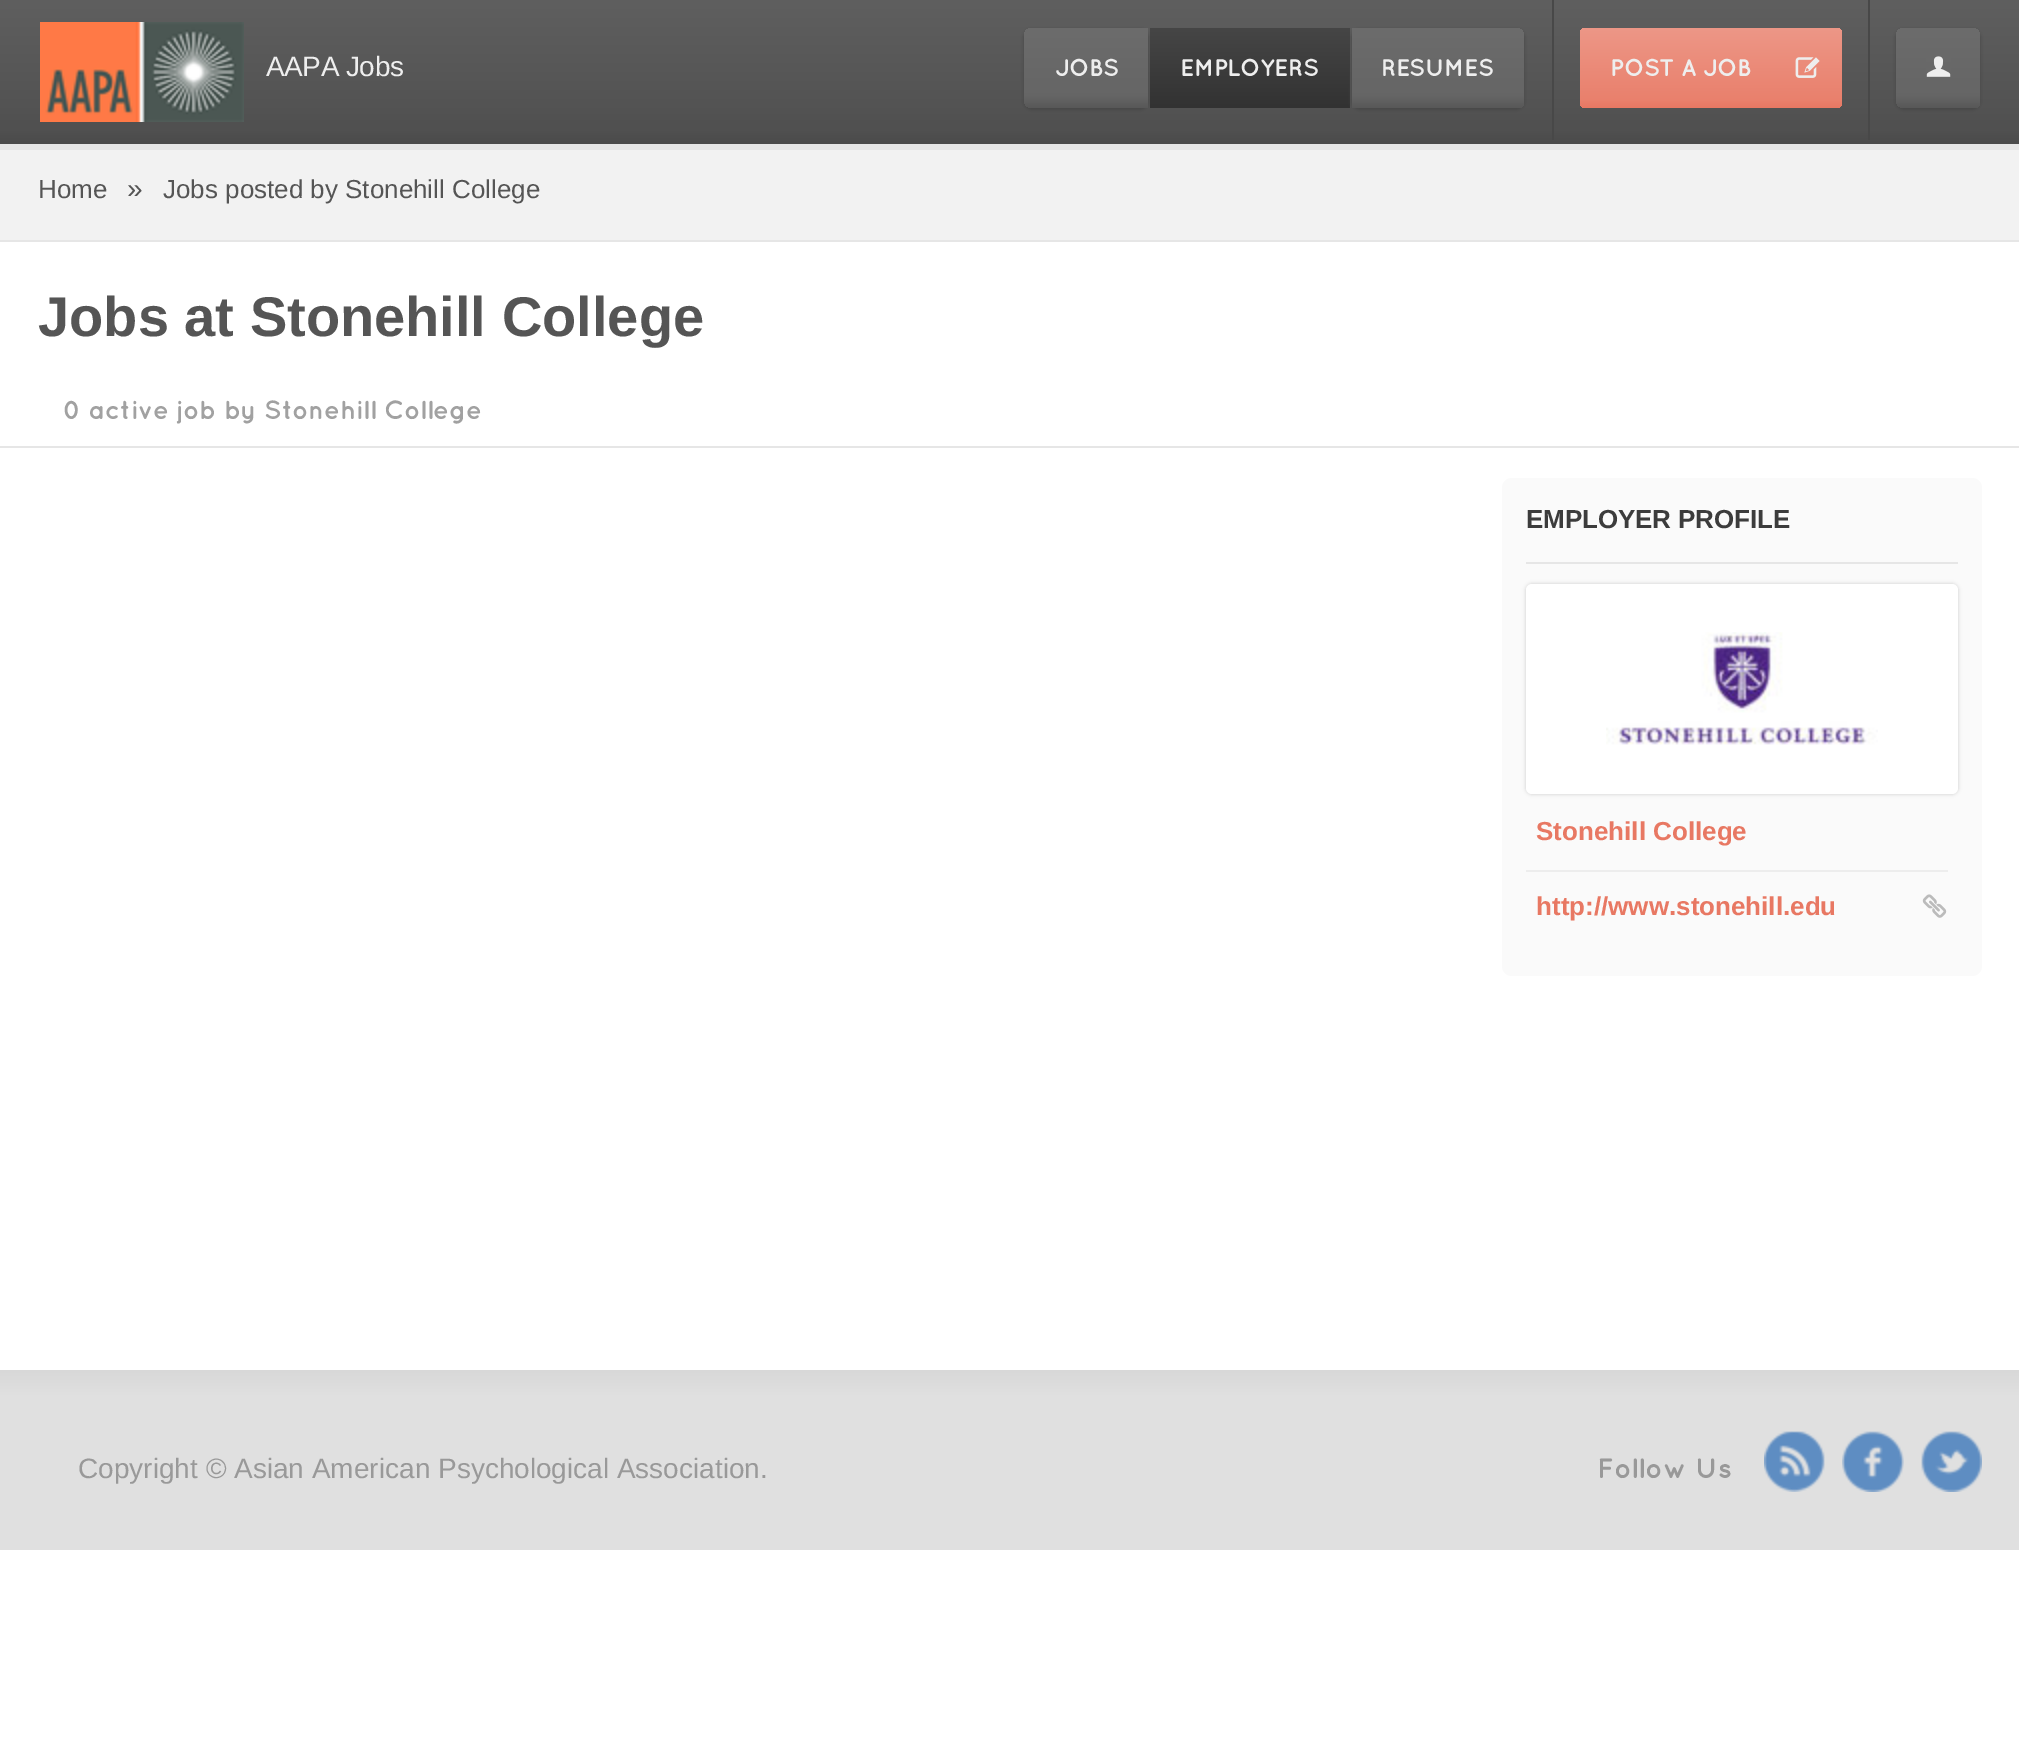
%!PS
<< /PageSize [2019 1748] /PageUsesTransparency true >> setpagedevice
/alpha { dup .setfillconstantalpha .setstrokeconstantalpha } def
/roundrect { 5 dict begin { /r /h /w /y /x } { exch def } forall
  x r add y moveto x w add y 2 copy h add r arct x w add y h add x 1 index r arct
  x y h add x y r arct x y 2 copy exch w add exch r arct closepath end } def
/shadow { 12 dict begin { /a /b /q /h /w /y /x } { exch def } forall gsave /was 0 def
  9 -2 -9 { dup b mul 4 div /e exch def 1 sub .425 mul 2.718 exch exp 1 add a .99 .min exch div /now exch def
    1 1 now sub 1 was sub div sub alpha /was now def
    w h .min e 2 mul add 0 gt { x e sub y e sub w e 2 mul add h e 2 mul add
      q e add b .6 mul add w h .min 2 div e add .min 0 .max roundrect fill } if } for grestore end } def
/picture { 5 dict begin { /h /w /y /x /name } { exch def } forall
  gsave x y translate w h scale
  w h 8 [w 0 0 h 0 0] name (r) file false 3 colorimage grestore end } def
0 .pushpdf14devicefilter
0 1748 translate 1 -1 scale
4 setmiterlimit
1 setgray
0 0 2019 1748 rectfill
gsave newpath 0 0 moveto 2019 0 lineto 2019 144 lineto 0 144 lineto closepath clip newpath
<< /ShadingType 2 /ColorSpace /DeviceRGB /Coords [1010 0 1010 144] /Extend [true true] /Function << /FunctionType 3 /Domain [0 1] /Functions [<< /FunctionType 2 /Domain [0 1] /C0 [0.373 0.373 0.373] /C1 [0.314 0.314 0.314] /N 1 >> << /FunctionType 2 /Domain [0 1] /C0 [0.314 0.314 0.314] /C1 [0.294 0.294 0.294] /N 1 >>] /Bounds [0.9] /Encode [0 1 0 1] >> >> shfill grestore
(img1.rgb) 40 22 204 100 picture
/LiberationSans-Regular [28 0 0 -28 0 0] selectfont
0.933 setgray
266 76 moveto -0.5 0 (AAPA Jobs) ashow
0.275 setgray
1024 30 124 80 8 2 1 shadow
gsave newpath 1032 28 moveto 1148 28 lineto 1148 108 lineto 1032 108 lineto 1027.5 108 1024 104.5 1024 100 curveto 1024 36 lineto 1024 31.5 1027.5 28 1032 28 curveto closepath clip newpath
<< /ShadingType 2 /ColorSpace /DeviceRGB /Coords [1086 28 1086 108] /Extend [true true] /Function << /FunctionType 3 /Domain [0 1] /Functions [<< /FunctionType 2 /Domain [0 1] /C0 [0.424 0.424 0.424] /C1 [0.396 0.396 0.396] /N 1 >> << /FunctionType 2 /Domain [0 1] /C0 [0.396 0.396 0.396] /C1 [0.345 0.345 0.345] /N 1 >>] /Bounds [0.85] /Encode [0 1 0 1] >> >> shfill grestore
/Quicksand-Bold [24 0 0 -24 0 0] selectfont
0.933 setgray
1055 76 moveto -0.4 0 (JOBS) ashow
gsave newpath 1150 28 moveto 1350 28 lineto 1350 108 lineto 1150 108 lineto closepath clip newpath
<< /ShadingType 2 /ColorSpace /DeviceRGB /Coords [1250 28 1250 108] /Extend [true true] /Function << /FunctionType 2 /Domain [0 1] /C0 [0.275 0.275 0.275] /C1 [0.196 0.196 0.196] /N 1 >> >> shfill grestore
1180 76 moveto -0.4 0 (EMPLOYERS) ashow
0.275 setgray
1352 30 172 80 8 2 1 shadow
gsave newpath 1352 28 moveto 1516 28 lineto 1520.5 28 1524 31.5 1524 36 curveto 1524 102 lineto 1524 105.5 1521.5 108 1518 108 curveto 1352 108 lineto closepath clip newpath
<< /ShadingType 2 /ColorSpace /DeviceRGB /Coords [1438 28 1438 108] /Extend [true true] /Function << /FunctionType 3 /Domain [0 1] /Functions [<< /FunctionType 2 /Domain [0 1] /C0 [0.424 0.424 0.424] /C1 [0.396 0.396 0.396] /N 1 >> << /FunctionType 2 /Domain [0 1] /C0 [0.396 0.396 0.396] /C1 [0.345 0.345 0.345] /N 1 >>] /Bounds [0.85] /Encode [0 1 0 1] >> >> shfill grestore
0.933 setgray
1381 76 moveto -0.4 0 (RESUMES) ashow
0.282 setgray
1552 0 2 140 rectfill
gsave 1580 28 262 80 6 roundrect clip newpath
<< /ShadingType 2 /ColorSpace /DeviceRGB /Coords [1711 28 1711 108] /Extend [true true] /Function << /FunctionType 3 /Domain [0 1] /Functions [<< /FunctionType 2 /Domain [0 1] /C0 [0.929 0.592 0.529] /C1 [0.914 0.502 0.424] /N 1 >> << /FunctionType 2 /Domain [0 1] /C0 [0.914 0.502 0.424] /C1 [0.91 0.471 0.388] /N 1 >>] /Bounds [0.9] /Encode [0 1 0 1] >> >> shfill grestore
0.933 setgray
1610 76 moveto -0.4 0 (POST A JOB) ashow
(img2.rgb) 1795 57 25 21 picture
0.282 setgray
1868 0 2 140 rectfill
0.275 setgray
1896 30 84 80 8 2 1 shadow
gsave newpath 1904 28 moveto 1972 28 lineto 1976.5 28 1980 31.5 1980 36 curveto 1980 102 lineto 1980 105.5 1977.5 108 1974 108 curveto 1904 108 lineto 1899.5 108 1896 104.5 1896 100 curveto 1896 36 lineto 1896 31.5 1899.5 28 1904 28 curveto closepath clip newpath
<< /ShadingType 2 /ColorSpace /DeviceRGB /Coords [1938 28 1938 108] /Extend [true true] /Function << /FunctionType 3 /Domain [0 1] /Functions [<< /FunctionType 2 /Domain [0 1] /C0 [0.424 0.424 0.424] /C1 [0.396 0.396 0.396] /N 1 >> << /FunctionType 2 /Domain [0 1] /C0 [0.396 0.396 0.396] /C1 [0.345 0.345 0.345] /N 1 >>] /Bounds [0.85] /Encode [0 1 0 1] >> >> shfill grestore
(img3.rgb) 1926 56 25 21 picture
0.949 setgray
0 150 2019 90 rectfill
0.902 setgray
0 144 2019 6 rectfill
/LiberationSans-Regular [26 0 0 -26 0 0] selectfont
0.333 setgray
38 198 moveto (Home) show
/LiberationSans-Regular [28 0 0 -28 0 0] selectfont
127 198 moveto (») show
/LiberationSans-Regular [26 0 0 -26 0 0] selectfont
163 198 moveto (Jobs posted by Stonehill College) show
0.902 setgray
0 240 2019 2 rectfill
/LiberationSans-Bold [56 0 0 -56 0 0] selectfont
0.333 setgray
38 336 moveto (Jobs at Stonehill College) show
0.902 setgray
0 446 2019 2 rectfill
/Quicksand-Bold [26 0 0 -26 0 0] selectfont
0.631 setgray
63 419 moveto (0 active job by Stonehill College) show
0.98 setgray
1502 478 480 498 10 roundrect fill
0.902 setgray
1526 562 432 2 rectfill
/LiberationSans-Bold [26 0 0 -26 0 0] selectfont
0.235 setgray
1526 528 moveto -0.1 0 (EMPLOYER PROFILE) ashow
0.796 setgray
1526 584 432 210 6 2 1 shadow
1 setgray
1526 584 432 210 6 roundrect fill
(img4.rgb) 1606 632 272 113 picture
0.91 0.471 0.388 setrgbcolor
1536 840 moveto (Stonehill College) show
0.929 setgray
1526 870 422 2 rectfill
0.91 0.471 0.388 setrgbcolor
1536 915 moveto (http://www.stonehill.edu) show
(img5.rgb) 1922 894 25 24 picture
gsave newpath 0 1370 moveto 2019 1370 lineto 2019 1550 lineto 0 1550 lineto closepath clip newpath
<< /ShadingType 2 /ColorSpace /DeviceRGB /Coords [1010 1370 1010 1550] /Extend [true true] /Function << /FunctionType 3 /Domain [0 1] /Functions [<< /FunctionType 2 /Domain [0 1] /C0 [0.847 0.847 0.847] /C1 [0.878 0.878 0.878] /N 1 >> << /FunctionType 2 /Domain [0 1] /C0 [0.878 0.878 0.878] /C1 [0.878 0.878 0.878] /N 1 >>] /Bounds [0.15] /Encode [0 1 0 1] >> >> shfill grestore
/LiberationSans-Regular [28 0 0 -28 0 0] selectfont
0.6 setgray
78 1478 moveto (Copyright © Asian American Psychological Association.) show
/Quicksand-Bold [28 0 0 -28 0 0] selectfont
1597 1478 moveto (Follow Us) show
(img6.rgb) 1764 1431 61 61 picture
(img7.rgb) 1842 1431 62 61 picture
(img8.rgb) 1921 1431 61 61 picture
.poppdf14devicefilter showpage
